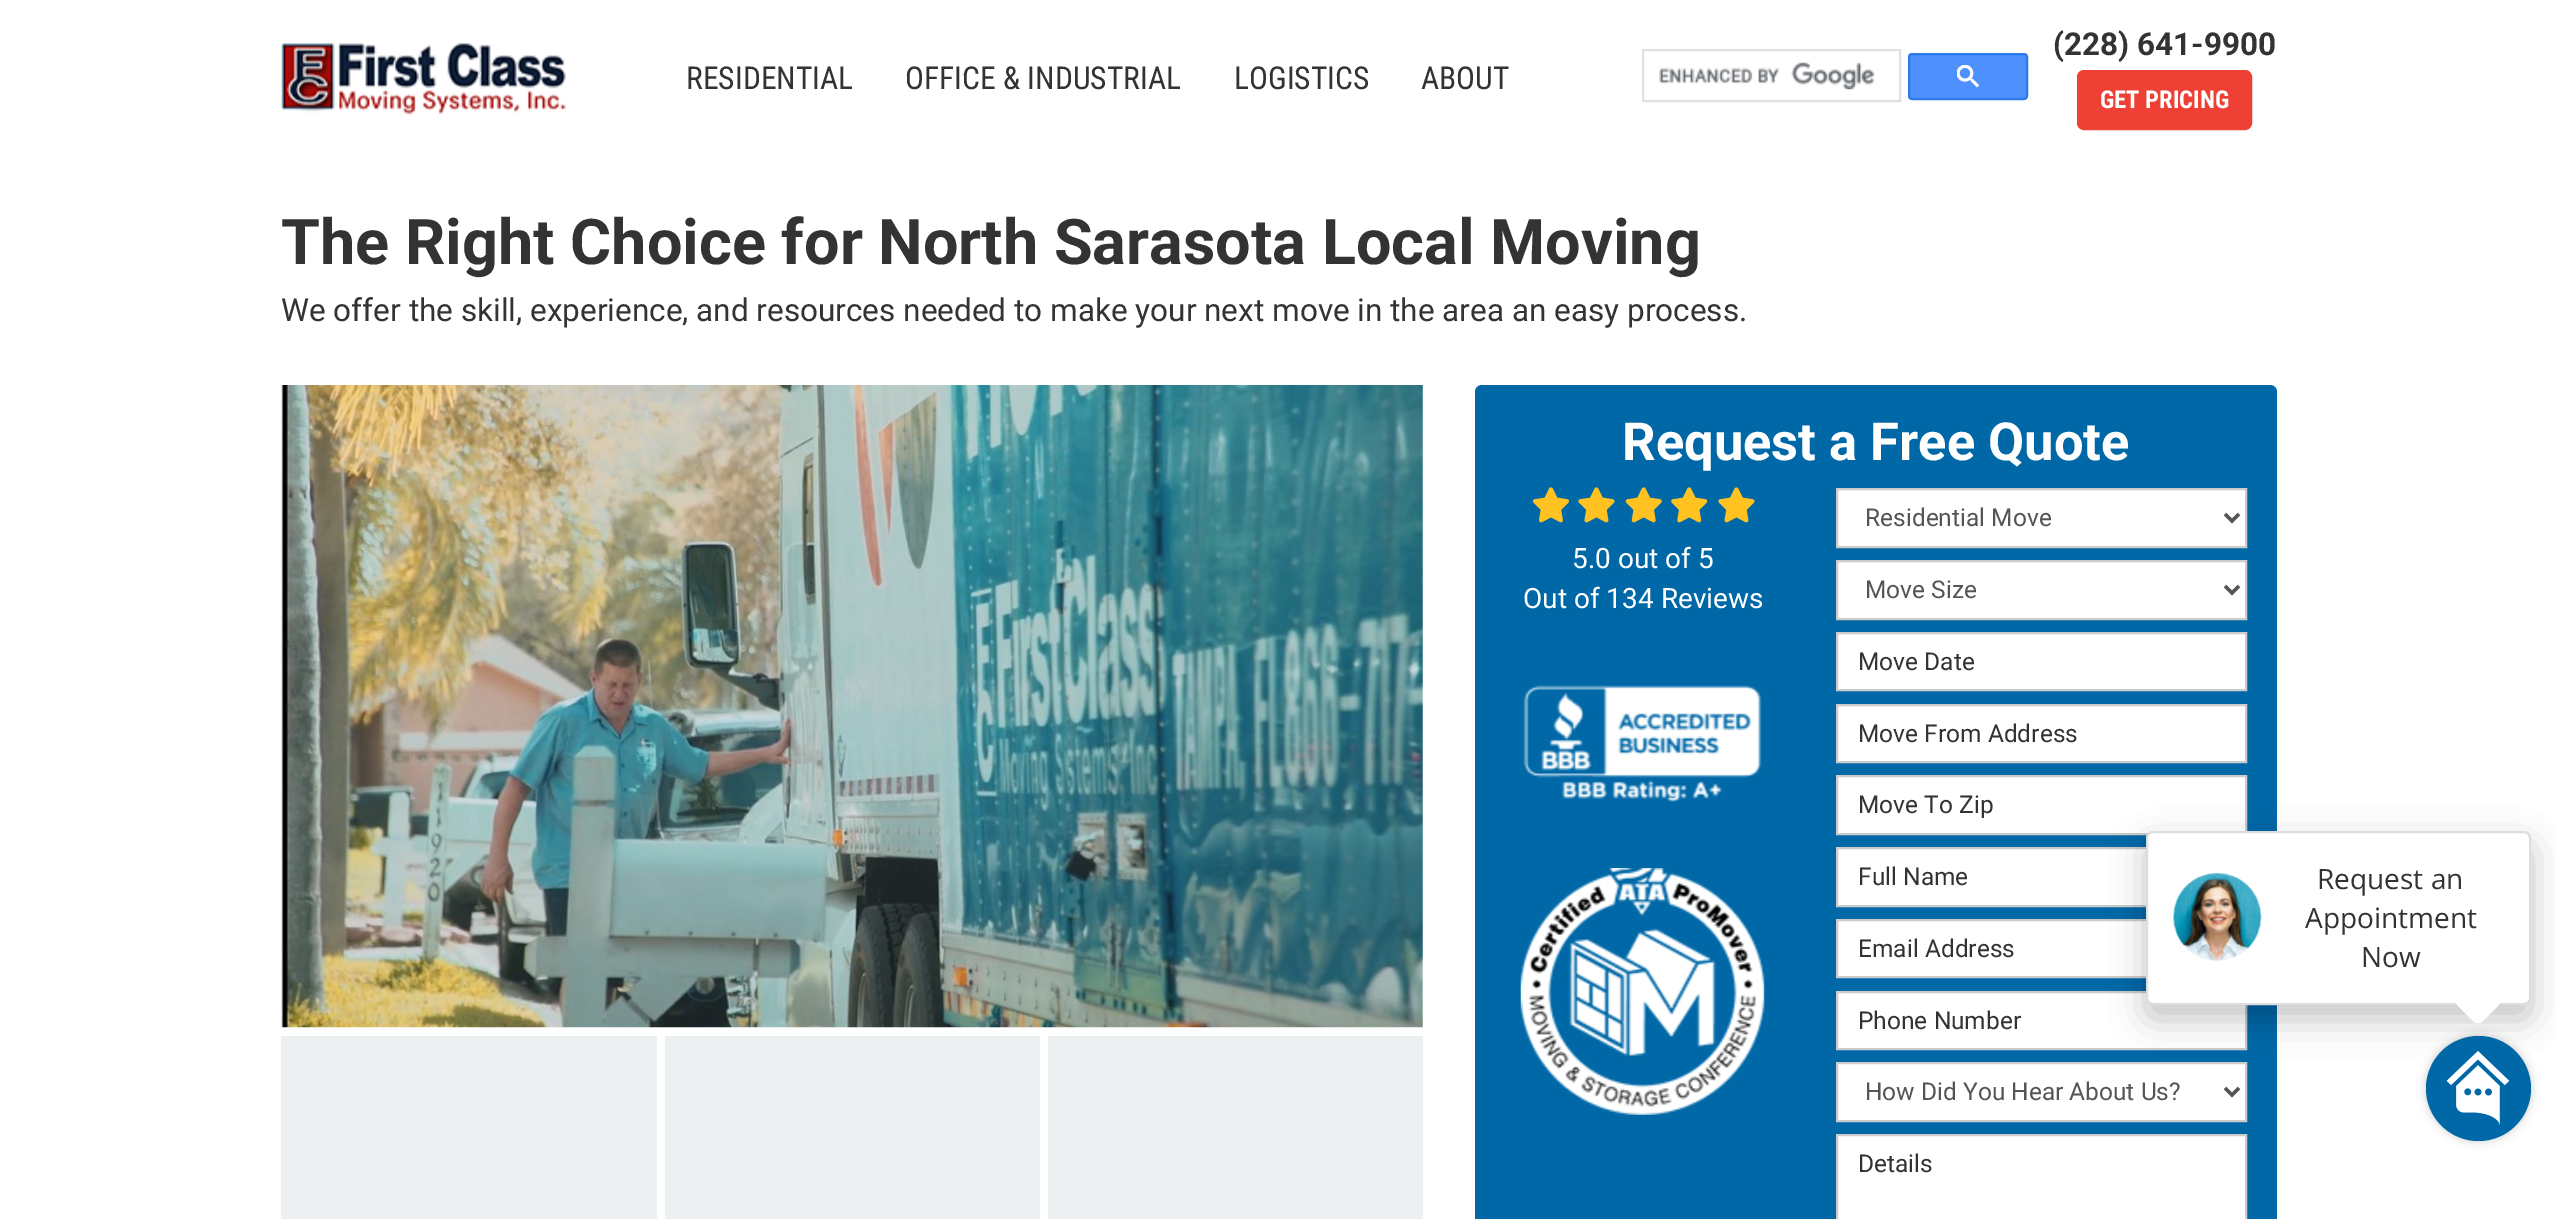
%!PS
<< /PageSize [2556 1219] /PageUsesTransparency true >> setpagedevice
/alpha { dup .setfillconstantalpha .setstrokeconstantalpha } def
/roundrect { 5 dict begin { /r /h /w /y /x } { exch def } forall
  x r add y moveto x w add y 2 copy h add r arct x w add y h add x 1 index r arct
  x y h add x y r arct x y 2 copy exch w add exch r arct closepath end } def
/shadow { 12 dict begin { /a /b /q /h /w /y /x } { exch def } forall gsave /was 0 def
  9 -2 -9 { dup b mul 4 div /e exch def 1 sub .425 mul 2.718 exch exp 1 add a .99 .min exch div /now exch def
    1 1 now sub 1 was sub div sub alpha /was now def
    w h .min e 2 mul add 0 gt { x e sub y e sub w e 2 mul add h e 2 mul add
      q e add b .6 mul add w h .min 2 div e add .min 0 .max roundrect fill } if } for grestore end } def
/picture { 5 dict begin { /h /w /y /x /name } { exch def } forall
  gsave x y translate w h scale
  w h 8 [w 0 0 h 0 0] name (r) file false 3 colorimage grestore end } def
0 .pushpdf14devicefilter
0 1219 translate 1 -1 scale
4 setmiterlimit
1 setgray
0 0 2556 1219 rectfill
(img1.rgb) 281 43 285 72 picture
/RobotoCondensed-Regular [31.5 0 0 -31.5 0 0] selectfont
0.2 setgray
686 89 moveto (RESIDENTIAL) show
905 89 moveto (OFFICE & INDUSTRIAL) show
1234 89 moveto (LOGISTICS) show
1421 89 moveto (ABOUT) show
0.875 0.882 0.898 setrgbcolor
2 setlinewidth
1643 50 257 51 rectstroke
(img2.rgb) 1659 62 216 28 picture
0.302 0.565 0.996 setrgbcolor
1909 54 118 45 3 roundrect gsave fill grestore
0.188 0.475 0.929 setrgbcolor
stroke
(img3.rgb) 1957 65 22 23 picture
/Roboto-Bold [31.5 0 0 -31.5 0 0] selectfont
0.2 setgray
2053 55 moveto (\(228\) 641-9900) show
0.933 0.251 0.208 setrgbcolor
2078 71 173 58 6 roundrect gsave fill grestore
stroke
/RobotoCondensed-Bold [24.5 0 0 -24.5 0 0] selectfont
1 setgray
2100 108 moveto (GET PRICING) show
/Roboto-Bold [63 0 0 -63 0 0] selectfont
0.2 setgray
281 264 moveto (The Right Choice for North Sarasota Local Moving) show
/Roboto-Regular [31.5 0 0 -31.5 0 0] selectfont
281 321 moveto (We offer the skill, experience, and resources needed to make your next move in the area an easy process.) show
(img4.rgb) 281 385 1142 643 picture
0.925 0.941 0.945 setrgbcolor
281 1036 376 183 rectfill
665 1036 375 183 rectfill
1048 1036 375 183 rectfill
0 0.408 0.655 setrgbcolor
1475 385 802 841 7 roundrect fill
/Roboto-Bold [52.5 0 0 -52.5 0 0] selectfont
1 setgray
1622 460 moveto (Request a Free Quote) show
(img5.rgb) 1532 487 37 36 picture
(img6.rgb) 1578 487 37 36 picture
(img7.rgb) 1625 487 37 36 picture
(img8.rgb) 1671 487 37 36 picture
(img6.rgb) 1718 487 37 36 picture
/Roboto-Regular [28 0 0 -28 0 0] selectfont
1572 568 moveto (5.0 out of 5) show
1523 608 moveto (Out of 134 Reviews) show
(img9.rgb) 1523 685 239 117 picture
(img10.rgb) 1520 868 245 247 picture
newpath 1837 489 moveto 2246 489 lineto 2246 547 lineto 1837 547 lineto closepath gsave fill grestore
0.8 setgray
stroke
0.333 setgray
3.5 setlinewidth
newpath 2225 514 moveto 2232 521 lineto 2239 514 lineto stroke
/Roboto-Regular [24.5 0 0 -24.5 0 0] selectfont
1865 526 moveto (Residential Move) show
1 setgray
newpath 1837 561 moveto 2246 561 lineto 2246 619 lineto 1837 619 lineto closepath gsave fill grestore
0.8 setgray
2 setlinewidth
stroke
0.333 setgray
3.5 setlinewidth
newpath 2225 586 moveto 2232 593 lineto 2239 586 lineto stroke
1865 598 moveto (Move Size) show
1 setgray
newpath 1837 633 moveto 2246 633 lineto 2246 690 lineto 1837 690 lineto closepath gsave fill grestore
0.8 setgray
2 setlinewidth
stroke
0.2 setgray
1858 670 moveto (Move Date) show
1 setgray
newpath 1837 705 moveto 2246 705 lineto 2246 762 lineto 1837 762 lineto closepath gsave fill grestore
0.8 setgray
stroke
0.2 setgray
1858 742 moveto (Move From Address) show
1 setgray
newpath 1837 776 moveto 2246 776 lineto 2246 834 lineto 1837 834 lineto closepath gsave fill grestore
0.8 setgray
stroke
0.2 setgray
1858 813 moveto (Move To Zip) show
1 setgray
1838 849 308 56 rectfill
0.8 setgray
1837 848 409 58 rectstroke
0.2 setgray
1858 885 moveto (Full Name) show
1 setgray
1838 921 308 55 rectfill
0.8 setgray
1837 920 409 57 rectstroke
0.2 setgray
1858 957 moveto (Email Address) show
1 setgray
newpath 1837 992 moveto 2246 992 lineto 2246 1049 lineto 1837 1049 lineto closepath gsave fill grestore
0.8 setgray
stroke
0.2 setgray
1858 1029 moveto (Phone Number) show
1 setgray
newpath 1837 1063 moveto 2246 1063 lineto 2246 1121 lineto 1837 1121 lineto closepath gsave fill grestore
0.8 setgray
stroke
0.333 setgray
3.5 setlinewidth
newpath 2225 1088 moveto 2232 1095 lineto 2239 1088 lineto stroke
1865 1100 moveto (How Did You Hear About Us?) show
1 setgray
newpath 1837 1135 moveto 2246 1135 lineto 2246 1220 lineto 1837 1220 lineto closepath gsave fill grestore
0.8 setgray
2 setlinewidth
stroke
0.2 setgray
1858 1172 moveto (Details) show
0 setgray
2146 845 385 174 7 17.5 0.24 shadow
1 setgray
2147 832 383 172 6 roundrect gsave fill grestore
0.867 setgray
stroke
(img11.rgb) 2173 873 89 89 picture
/OpenSans-Regular [28 0 0 -28 0 0] selectfont
0.2 setgray
2317 889 moveto (Request an) show
2305 928 moveto (Appointment) show
2361 967 moveto (Now) show
1 setgray
newpath 2483 981 moveto 2498 996 lineto 2501 999 2501 1003 2498 1006 curveto 2483 1021 lineto 2480 1024 2476 1024 2473 1021 curveto 2458 1006 lineto 2455 1003 2455 999 2458 996 curveto 2473 981 lineto 2476 978 2480 978 2483 981 curveto closepath fill
0 setgray
2426 1036 105 105 52.5 4.5 0.2 shadow
0 0.408 0.655 setrgbcolor
newpath 2478.5 1088.5 52.5 0 360 arc closepath fill
(img12.rgb) 2446 1051 64 75 picture
.poppdf14devicefilter showpage
